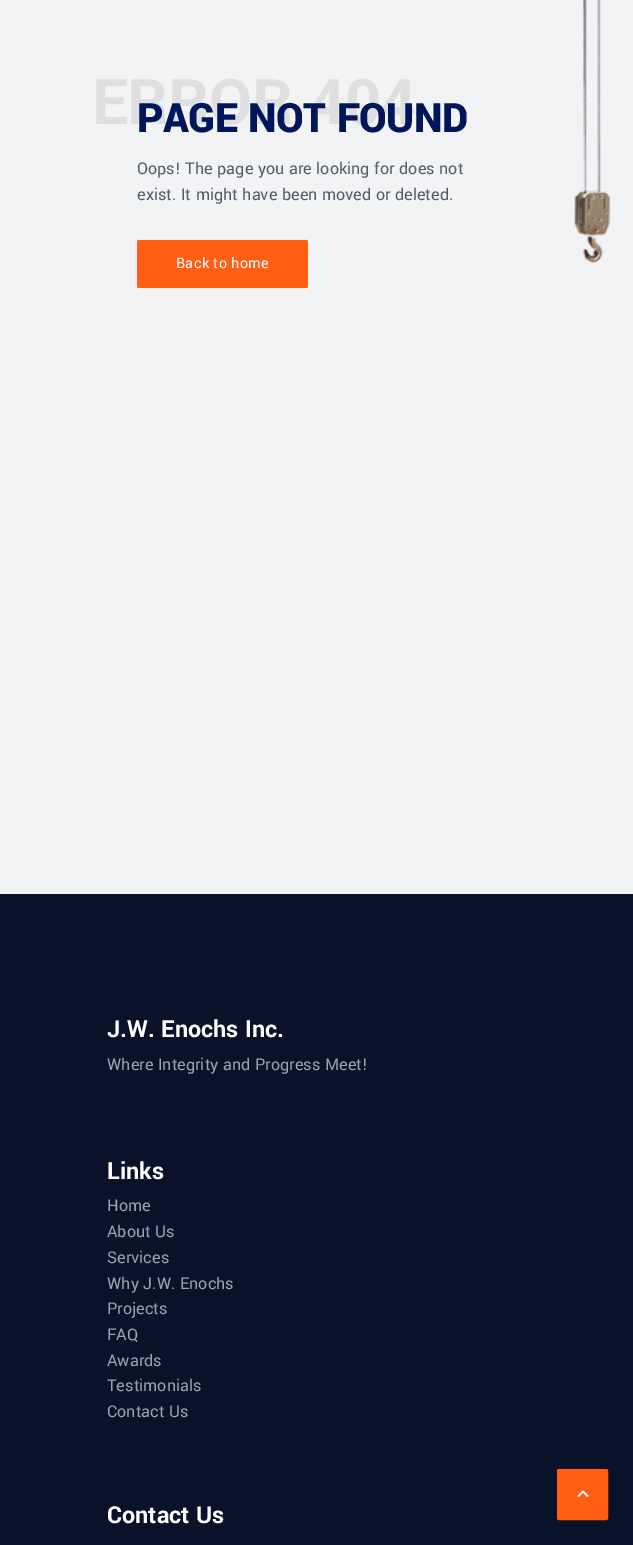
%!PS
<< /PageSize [633 1545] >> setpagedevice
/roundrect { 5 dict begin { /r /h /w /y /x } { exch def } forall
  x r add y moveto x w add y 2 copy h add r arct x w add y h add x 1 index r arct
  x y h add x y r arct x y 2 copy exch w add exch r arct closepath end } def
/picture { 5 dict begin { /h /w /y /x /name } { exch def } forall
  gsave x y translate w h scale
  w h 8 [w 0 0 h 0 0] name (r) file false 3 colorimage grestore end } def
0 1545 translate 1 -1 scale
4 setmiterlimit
0.039 0.071 0.161 setrgbcolor
0 0 633 1545 rectfill
(img1.rgb) 0 0 633 894 picture
/Yantramanav-Bold [70 0 0 -70 0 0] selectfont
0.875 0.875 0.882 setrgbcolor
92 124 moveto -0.75 0 (ERROR 404) ashow
/Yantramanav-Black [45 0 0 -45 0 0] selectfont
0 0.086 0.349 setrgbcolor
137 132 moveto -0.5 0 (PAGE NOT FOUND) ashow
/Yantramanav-Regular [18 0 0 -18 0 0] selectfont
0.337 0.349 0.412 setrgbcolor
137 174 moveto (Oops! The page you are looking for does not) show
137 200 moveto (exist. It might have been moved or deleted.) show
1 0.369 0.078 setrgbcolor
137 240 171 48 2 roundrect fill
/Yantramanav-Regular [16 0 0 -16 0 0] selectfont
1 setgray
176 268 moveto 0.25 0 (Back to home) ashow
1 0.369 0.078 setrgbcolor
557.5 1469.5 50 50 1.5 roundrect gsave fill grestore
stroke
(img2.rgb) 577 1490 12 8 picture
/Yantramanav-Bold [26 0 0 -26 0 0] selectfont
1 setgray
107 1037 moveto (J.W. Enochs Inc.) show
/Yantramanav-Regular [18 0 0 -18 0 0] selectfont
0.612 0.647 0.686 setrgbcolor
107 1070 moveto (Where Integrity and Progress Meet!) show
/Yantramanav-Bold [26 0 0 -26 0 0] selectfont
1 setgray
107 1179 moveto (Links) show
/Yantramanav-Regular [18 0 0 -18 0 0] selectfont
0.612 0.647 0.686 setrgbcolor
107 1211 moveto (Home) show
107 1237 moveto (About Us) show
107 1263 moveto (Services) show
107 1289 moveto (Why J.W. Enochs) show
107 1314 moveto (Projects) show
107 1340 moveto (FAQ) show
107 1366 moveto (Awards) show
107 1391 moveto (Testimonials) show
107 1417 moveto (Contact Us) show
/Yantramanav-Bold [26 0 0 -26 0 0] selectfont
1 setgray
107 1523 moveto (Contact Us) show
showpage
